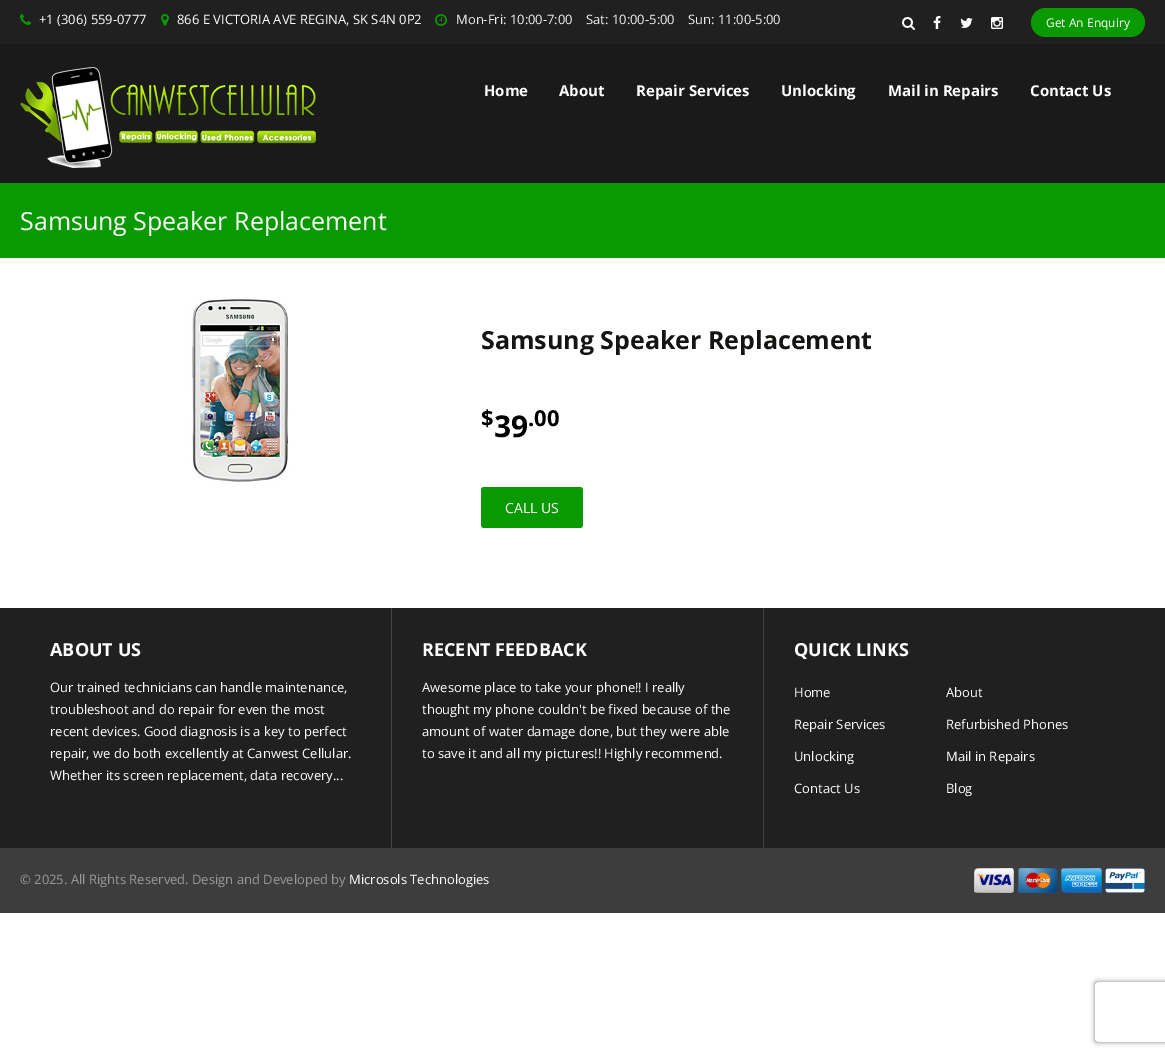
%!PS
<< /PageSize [1165 1056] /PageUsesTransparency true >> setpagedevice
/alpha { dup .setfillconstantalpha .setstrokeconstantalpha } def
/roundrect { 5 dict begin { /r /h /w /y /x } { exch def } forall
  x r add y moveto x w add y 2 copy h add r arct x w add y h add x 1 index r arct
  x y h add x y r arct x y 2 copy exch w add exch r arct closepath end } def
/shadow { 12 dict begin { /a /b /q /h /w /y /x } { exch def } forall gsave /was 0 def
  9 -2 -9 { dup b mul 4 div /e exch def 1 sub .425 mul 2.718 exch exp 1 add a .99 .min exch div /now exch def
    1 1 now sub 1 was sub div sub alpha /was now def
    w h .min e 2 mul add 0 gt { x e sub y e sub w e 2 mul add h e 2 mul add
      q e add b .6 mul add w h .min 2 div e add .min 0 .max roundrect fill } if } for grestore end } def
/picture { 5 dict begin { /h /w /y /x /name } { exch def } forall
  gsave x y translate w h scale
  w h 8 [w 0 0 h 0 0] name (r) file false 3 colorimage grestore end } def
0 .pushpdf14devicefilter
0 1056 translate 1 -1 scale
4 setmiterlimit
1 setgray
0 0 1165 1056 rectfill
0.125 setgray
0 0 1165 44 rectfill
(img1.rgb) 20 14 11 11 picture
/OpenSans-Regular [13 0 0 -13 0 0] selectfont
1 setgray
39 24 moveto (+1 \(306\) 559-0777) show
(img2.rgb) 161 14 8 12 picture
177 24 moveto (866 E VICTORIA AVE REGINA, SK S4N 0P2) show
(img3.rgb) 435 14 12 12 picture
0.933 setgray
456 24 moveto (Mon-Fri: 10:00-7:00) show
586 24 moveto (Sat: 10:00-5:00) show
688 24 moveto (Sun: 11:00-5:00) show
(img4.rgb) 902 17 13 13 picture
(img5.rgb) 933 16 8 13 picture
(img6.rgb) 960 18 13 10 picture
(img7.rgb) 991 17 12 12 picture
0.035 0.604 0.004 setrgbcolor
1031 8 114 29 14.5 roundrect fill
/OpenSans-Regular [12 0 0 -12 0 0] selectfont
1 setgray
1046 27 moveto (Get An Enquiry) show
0.102 setgray
0 44 1165 139 rectfill
(img8.rgb) 20 67 296 101 picture
/OpenSans-Bold [15 0 0 -15 0 0] selectfont
1 setgray
484 96 moveto (Home) show
559 96 moveto (About) show
636 96 moveto (Repair Services) show
781 96 moveto (Unlocking) show
888 96 moveto (Mail in Repairs) show
1030 96 moveto (Contact Us) show
0.035 0.604 0.004 setrgbcolor
0 183 1165 75 rectfill
/OpenSans-Regular [25 0 0 -25 0 0] selectfont
1 setgray
20 230 moveto (Samsung Speaker Replacement) show
(img9.rgb) 187 298 102 184 picture
/OpenSans-Bold [25 0 0 -25 0 0] selectfont
0.078 0.078 0.071 setrgbcolor
481 349 moveto (Samsung Speaker Replacement) show
/OpenSans-Bold [22 0 0 -22 0 0] selectfont
0 setgray
481 426 moveto ($) show
/OpenSans-Bold [30 0 0 -30 0 0] selectfont
494 437 moveto (39) show
/OpenSans-Bold [22 0 0 -22 0 0] selectfont
528 426 moveto (.00) show
0.035 0.604 0.004 setrgbcolor
481 487 102 41 3 roundrect fill
/OpenSans-Regular [14 0 0 -14 0 0] selectfont
1 setgray
505 513 moveto (CALL US) show
0.125 setgray
0 608 1165 240 rectfill
/OpenSans-Bold [18 0 0 -18 0 0] selectfont
1 setgray
50 656 moveto (ABOUT US) show
/OpenSans-Regular [13 0 0 -13 0 0] selectfont
50 692 moveto (Our trained technicians can handle maintenance,) show
50 714 moveto (troubleshoot and do repair for even the most) show
50 736 moveto (recent devices. Good diagnosis is a key to perfect) show
50 758 moveto (repair, we do both excellently at Canwest Cellular.) show
50 780 moveto (Whether its screen replacement, data recovery...) show
0.267 setgray
391 608 1 240 rectfill
/OpenSans-Bold [18 0 0 -18 0 0] selectfont
1 setgray
422 656 moveto (RECENT FEEDBACK) show
/OpenSans-Regular [13 0 0 -13 0 0] selectfont
422 692 moveto (Awesome place to take your phone!! I really) show
422 714 moveto (thought my phone couldn't be fixed because of the) show
422 736 moveto (amount of water damage done, but they were able) show
422 758 moveto (to save it and all my pictures!! Highly recommend.) show
0.267 setgray
763 608 1 240 rectfill
/OpenSans-Bold [18 0 0 -18 0 0] selectfont
1 setgray
794 656 moveto (QUICK LINKS) show
/OpenSans-Regular [13 0 0 -13 0 0] selectfont
794 697 moveto (Home) show
946 697 moveto (About) show
794 729 moveto (Repair Services) show
946 729 moveto (Refurbished Phones) show
794 761 moveto (Unlocking) show
946 761 moveto (Mail in Repairs) show
794 793 moveto (Contact Us) show
946 793 moveto (Blog) show
0.239 setgray
0 848 1165 65 rectfill
0.6 setgray
20 884 moveto (© 2025. All Rights Reserved. Design and Developed by) show
1 setgray
349 884 moveto (Microsols Technologies) show
(img10.rgb) 974 868 40 25 picture
(img11.rgb) 1018 868 40 25 picture
(img12.rgb) 1061 868 41 25 picture
(img13.rgb) 1105 868 40 25 picture
gsave
newpath 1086 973 moveto 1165 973 lineto 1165 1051 lineto 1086 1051 lineto closepath 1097 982 moveto 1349 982 lineto 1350 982 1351 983 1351 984 curveto 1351 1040 lineto 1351 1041 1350 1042 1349 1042 curveto 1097 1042 lineto 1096 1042 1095 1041 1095 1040 curveto 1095 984 lineto 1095 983 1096 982 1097 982 curveto closepath eoclip newpath
0.502 setgray
1095 982 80 60 2 2.5 1 shadow
grestore
.poppdf14devicefilter showpage
